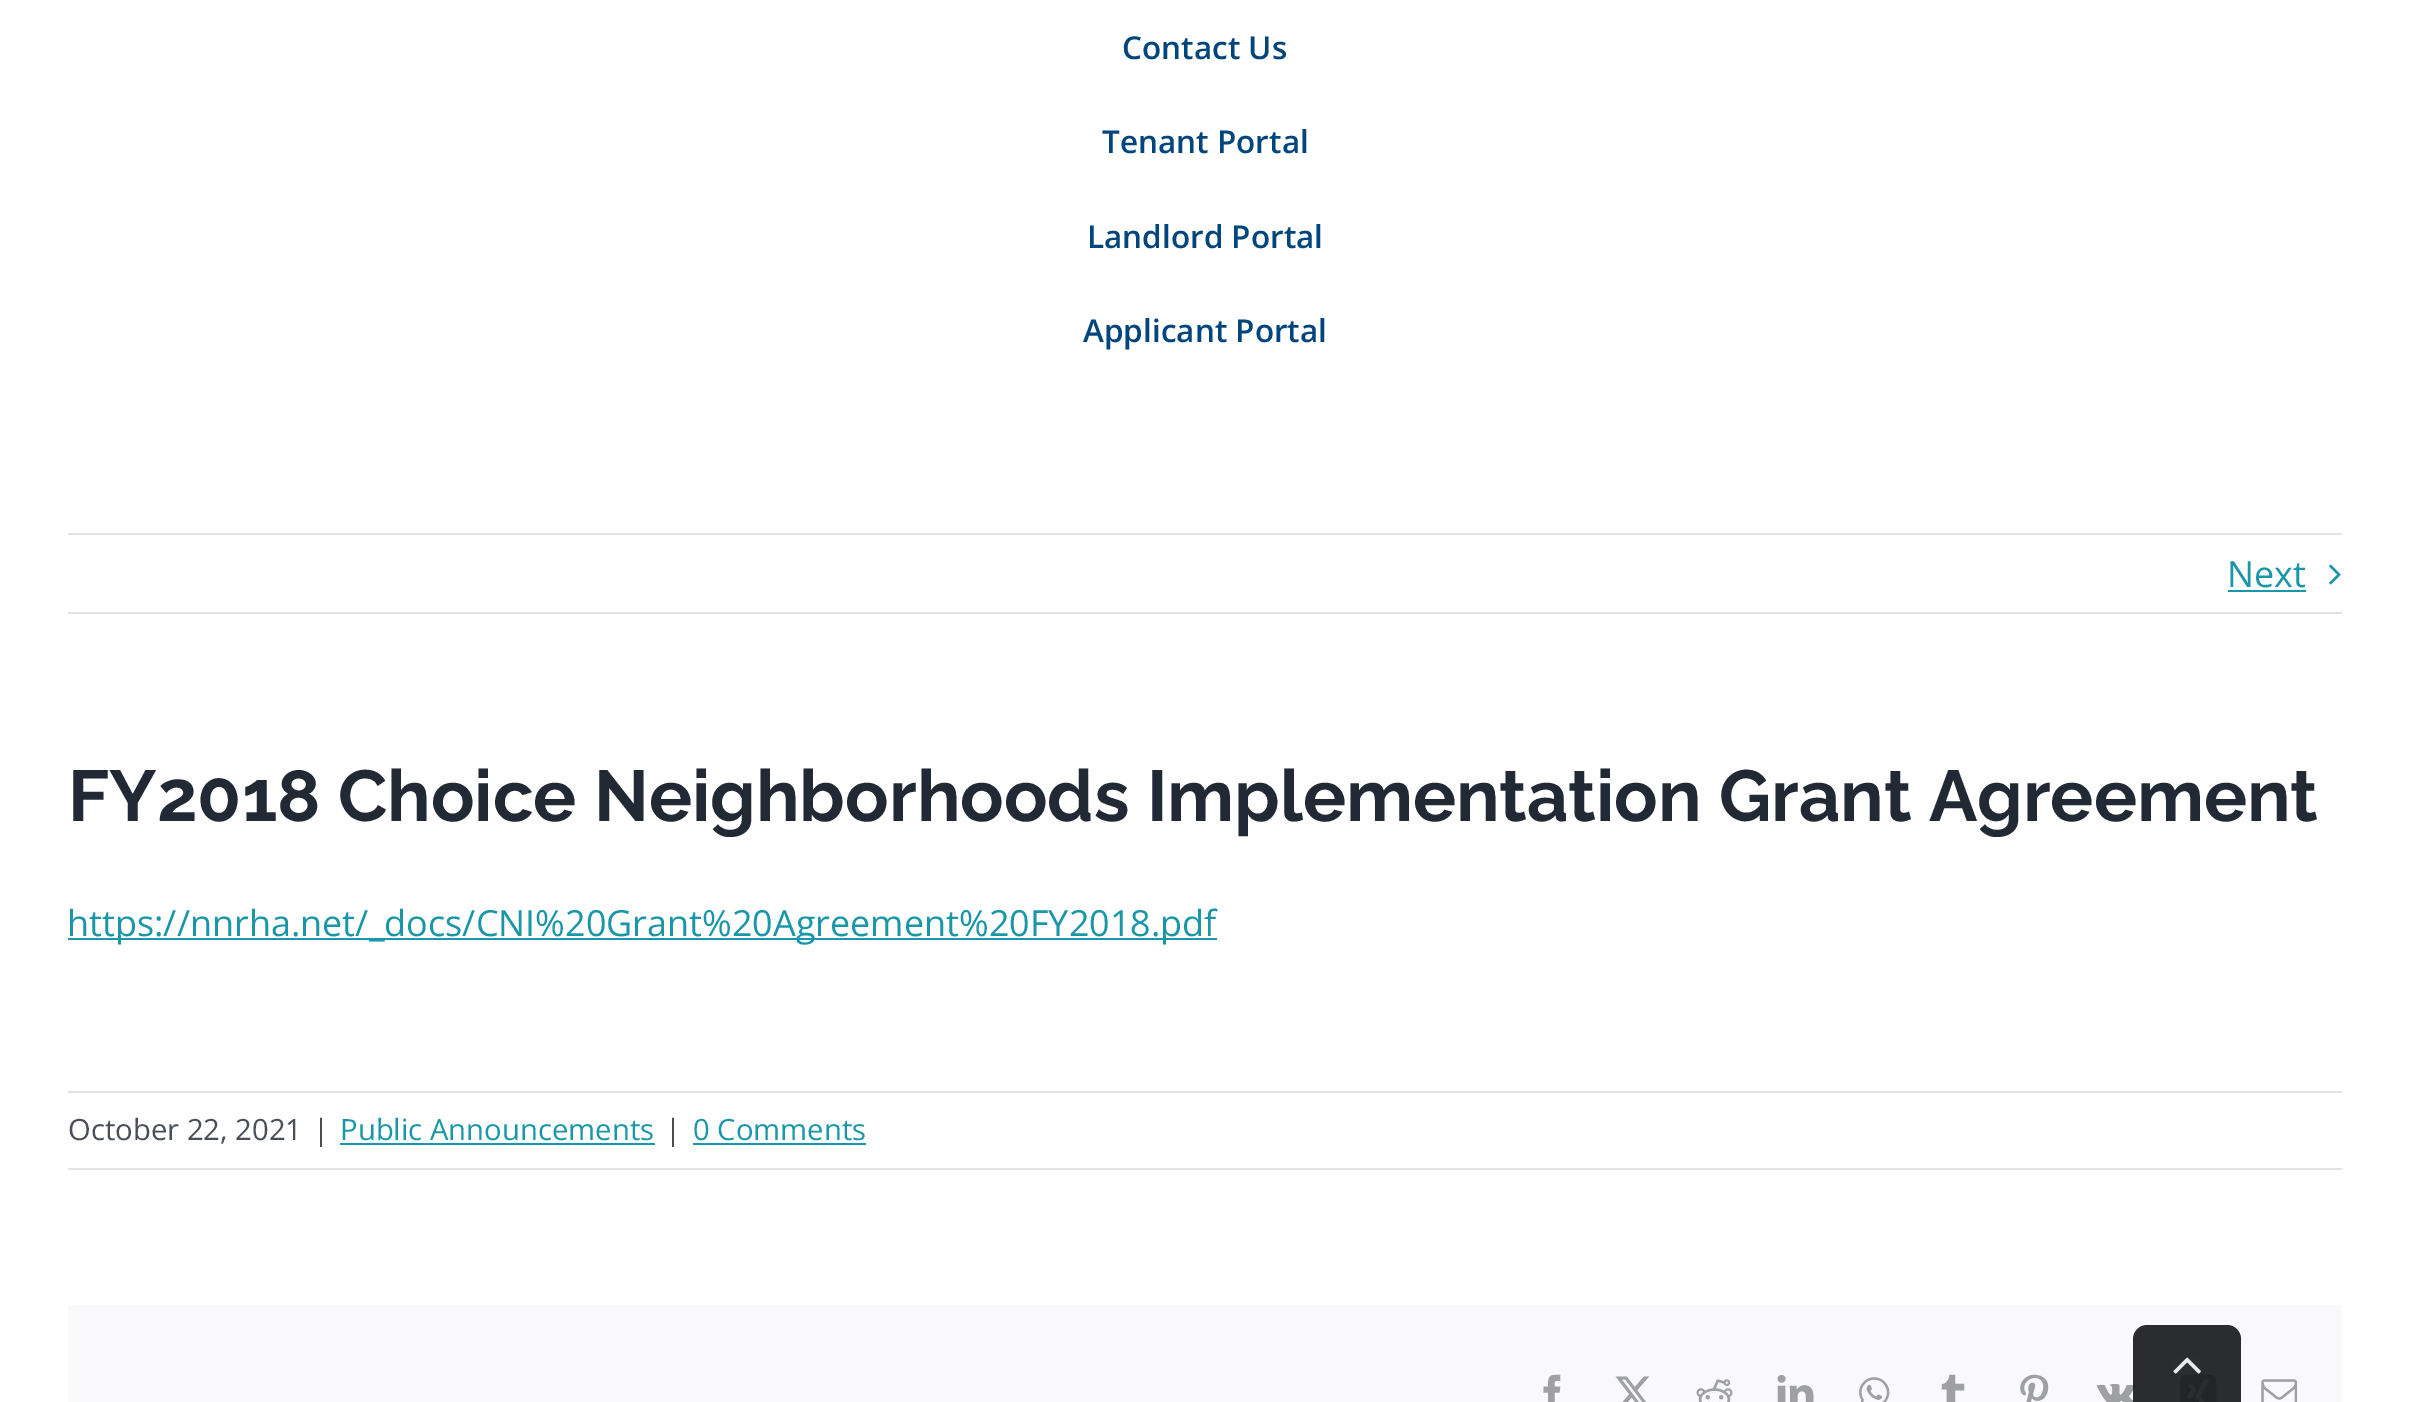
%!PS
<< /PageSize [2409 1402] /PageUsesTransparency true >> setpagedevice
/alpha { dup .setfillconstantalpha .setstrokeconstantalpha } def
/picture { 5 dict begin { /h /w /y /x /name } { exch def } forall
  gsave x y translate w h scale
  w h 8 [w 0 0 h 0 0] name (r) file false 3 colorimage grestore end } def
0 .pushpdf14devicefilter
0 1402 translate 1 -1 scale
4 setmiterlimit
1 setgray
0 0 2409 1402 rectfill
/OpenSans-SemiBold [31.5 0 0 -31.5 0 0] selectfont
0 0.271 0.486 setrgbcolor
1122 59 moveto (Contact Us) show
1102 153 moveto (Tenant Portal) show
1087 248 moveto (Landlord Portal) show
1083 342 moveto (Applicant Portal) show
0.886 setgray
68 533 2274 2 rectfill
68 612 2274 2 rectfill
/OpenSans-Regular [36 0 0 -36 0 0] selectfont
0.102 0.588 0.663 setrgbcolor
2227 587 moveto (Next) show
2228 590 78 2 rectfill
(img1.rgb) 2329 564 12 21 picture
/Raleway-Bold [72 0 0 -72 0 0] selectfont
0.129 0.161 0.204 setrgbcolor
68 821 moveto (FY2018 Choice Neighborhoods Implementation Grant Agreement) show
0.102 0.588 0.663 setrgbcolor
68 938 1149 2 rectfill
/OpenSans-Regular [36 0 0 -36 0 0] selectfont
67 936 moveto (https://nnrha.net/_docs/CNI%20Grant%20Agreement%20FY2018.pdf) show
0.886 setgray
68 1091 2274 2 rectfill
68 1168 2274 2 rectfill
/OpenSans-Regular [29.25 0 0 -29.25 0 0] selectfont
0.29 0.306 0.341 setrgbcolor
68 1140 moveto (October 22, 2021) show
313 1140 moveto (|) show
0.102 0.588 0.663 setrgbcolor
340 1140 moveto (Public Announcements) show
340 1143 315 2 rectfill
0.29 0.306 0.341 setrgbcolor
665 1140 moveto (|) show
0.102 0.588 0.663 setrgbcolor
693 1140 moveto (0 Comments) show
693 1143 173 2 rectfill
0.976 0.976 0.984 setrgbcolor
68 1305 2274 97 rectfill
(img2.rgb) 1543 1374 18 28 picture
(img3.rgb) 1615 1376 35 26 picture
(img4.rgb) 1696 1379 37 23 picture
(img5.rgb) 1777 1375 37 27 picture
(img6.rgb) 1859 1377 31 25 picture
(img7.rgb) 1941 1374 24 28 picture
(img8.rgb) 2020 1374 29 28 picture
(img9.rgb) 2097 1383 39 19 picture
(img10.rgb) 2180 1374 37 28 picture
(img11.rgb) 2261 1379 36 23 picture
0.9 alpha
0.078 0.086 0.09 setrgbcolor
newpath 2147 1325 moveto 2227 1325 lineto 2234.5 1325 2241 1331.5 2241 1339 curveto 2241 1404 lineto 2133 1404 lineto 2133 1339 lineto 2133 1331.5 2139.5 1325 2147 1325 curveto closepath fill
1 alpha
(img12.rgb) 2173 1357 28 17 picture
.poppdf14devicefilter showpage
